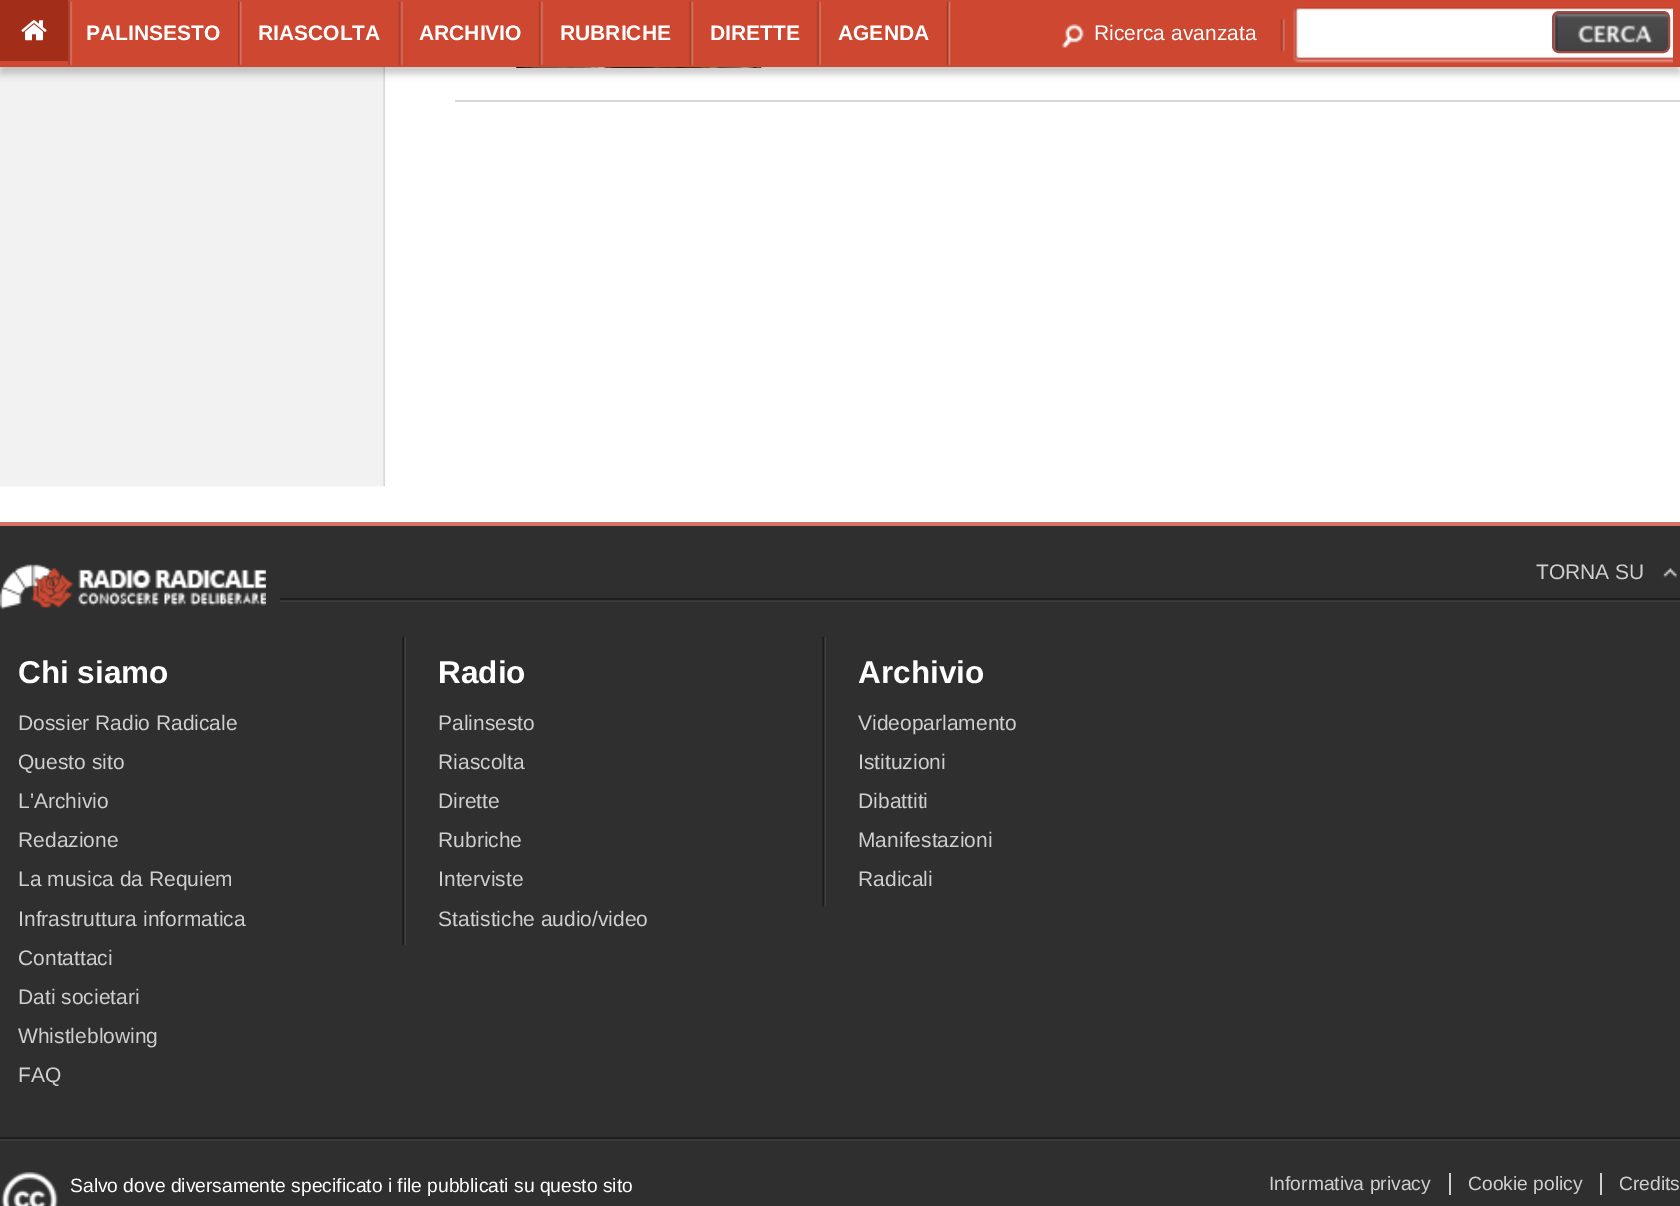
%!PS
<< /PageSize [1680 1206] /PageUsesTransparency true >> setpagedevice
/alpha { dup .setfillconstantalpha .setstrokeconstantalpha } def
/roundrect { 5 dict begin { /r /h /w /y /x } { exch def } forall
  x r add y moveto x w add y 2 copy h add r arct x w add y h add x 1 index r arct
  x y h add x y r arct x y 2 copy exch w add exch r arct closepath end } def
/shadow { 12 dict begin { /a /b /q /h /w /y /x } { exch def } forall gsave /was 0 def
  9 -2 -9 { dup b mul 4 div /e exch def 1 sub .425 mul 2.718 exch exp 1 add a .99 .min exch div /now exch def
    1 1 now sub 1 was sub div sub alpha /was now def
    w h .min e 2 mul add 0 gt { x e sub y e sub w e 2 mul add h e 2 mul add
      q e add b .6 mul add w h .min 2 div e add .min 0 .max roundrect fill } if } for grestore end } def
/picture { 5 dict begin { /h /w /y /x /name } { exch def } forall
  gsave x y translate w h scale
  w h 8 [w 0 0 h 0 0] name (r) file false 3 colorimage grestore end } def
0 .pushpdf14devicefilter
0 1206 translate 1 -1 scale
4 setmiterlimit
1 setgray
0 0 1680 1206 rectfill
(img11.rgb) 0 67 385 420 picture
(img12.rgb) 516 67 246 1 picture
0 setgray
0 7 1680 67 0 3.5 0.2 shadow
0.804 0.278 0.192 setrgbcolor
0 0 1680 67 rectfill
0.635 0.176 0.098 setrgbcolor
0 0 68 61 rectfill
(img1.rgb) 21 20 26 21 picture
(img2.rgb) 68 1 5 65 picture
(img3.rgb) 238 1 4 65 picture
/LiberationSans-Bold [21 0 0 -21 0 0] selectfont
1 setgray
86 40 moveto (PALINSESTO) show
(img4.rgb) 398 1 5 65 picture
258 40 moveto (RIASCOLTA) show
(img4.rgb) 538 1 5 65 picture
419 40 moveto (ARCHIVIO) show
(img5.rgb) 689 1 5 65 picture
560 40 moveto (RUBRICHE) show
(img6.rgb) 816 1 5 65 picture
710 40 moveto (DIRETTE) show
(img7.rgb) 946 1 5 65 picture
838 40 moveto (AGENDA) show
(img8.rgb) 1062 19 223 33 picture
/LiberationSans-Regular [21 0 0 -21 0 0] selectfont
1094 40 moveto (Ricerca avanzata) show
(img9.rgb) 1293 7 380 56 picture
(img10.rgb) 1553 11 117 42 picture
0.631 0.286 0.259 setrgbcolor
2 setlinewidth
1553 12 116 40 6 roundrect stroke
0.843 setgray
455 100 1225 2 rectfill
0.184 setgray
0 526 1680 680 rectfill
0.847 0.451 0.388 setrgbcolor
0 522 1680 4 rectfill
(img13.rgb) 280 598 1400 4 picture
(img14.rgb) 0 564 266 46 picture
(img15.rgb) 1662 568 15 10 picture
0.812 setgray
1536 579 moveto (TORNA SU) show
/LiberationSans-Bold [31.5 0 0 -31.5 0 0] selectfont
1 setgray
18 683 moveto (Chi siamo) show
/LiberationSans-Regular [21 0 0 -21 0 0] selectfont
0.812 setgray
18 730 moveto (Dossier Radio Radicale) show
18 769 moveto (Questo sito) show
18 808 moveto (L'Archivio) show
18 847 moveto (Redazione) show
18 886 moveto (La musica da Requiem) show
18 926 moveto (Infrastruttura informatica) show
18 965 moveto (Contattaci) show
18 1004 moveto (Dati societari) show
18 1043 moveto (Whistleblowing) show
18 1082 moveto (FAQ) show
(img16.rgb) 402 636 4 309 picture
/LiberationSans-Bold [31.5 0 0 -31.5 0 0] selectfont
1 setgray
438 683 moveto (Radio) show
/LiberationSans-Regular [21 0 0 -21 0 0] selectfont
0.812 setgray
438 730 moveto (Palinsesto) show
438 769 moveto (Riascolta) show
438 808 moveto (Dirette) show
438 847 moveto (Rubriche) show
438 886 moveto (Interviste) show
438 926 moveto (Statistiche audio/video) show
(img17.rgb) 822 636 4 271 picture
/LiberationSans-Bold [31.5 0 0 -31.5 0 0] selectfont
1 setgray
858 683 moveto (Archivio) show
/LiberationSans-Regular [21 0 0 -21 0 0] selectfont
0.812 setgray
858 730 moveto (Videoparlamento) show
858 769 moveto (Istituzioni) show
858 808 moveto (Dibattiti) show
858 847 moveto (Manifestazioni) show
858 886 moveto (Radicali) show
(img18.rgb) 0 1137 1680 4 picture
(img19.rgb) 1 1172 57 34 picture
/LiberationSans-Regular [19.25 0 0 -19.25 0 0] selectfont
1 setgray
70 1192 moveto (Salvo dove diversamente specificato i file pubblicati su questo sito) show
0.812 setgray
1269 1190 moveto (Informativa privacy) show
1449 1173 2 22 rectfill
1468 1190 moveto (Cookie policy) show
1600 1173 2 22 rectfill
1619 1190 moveto (Credits) show
.poppdf14devicefilter showpage
